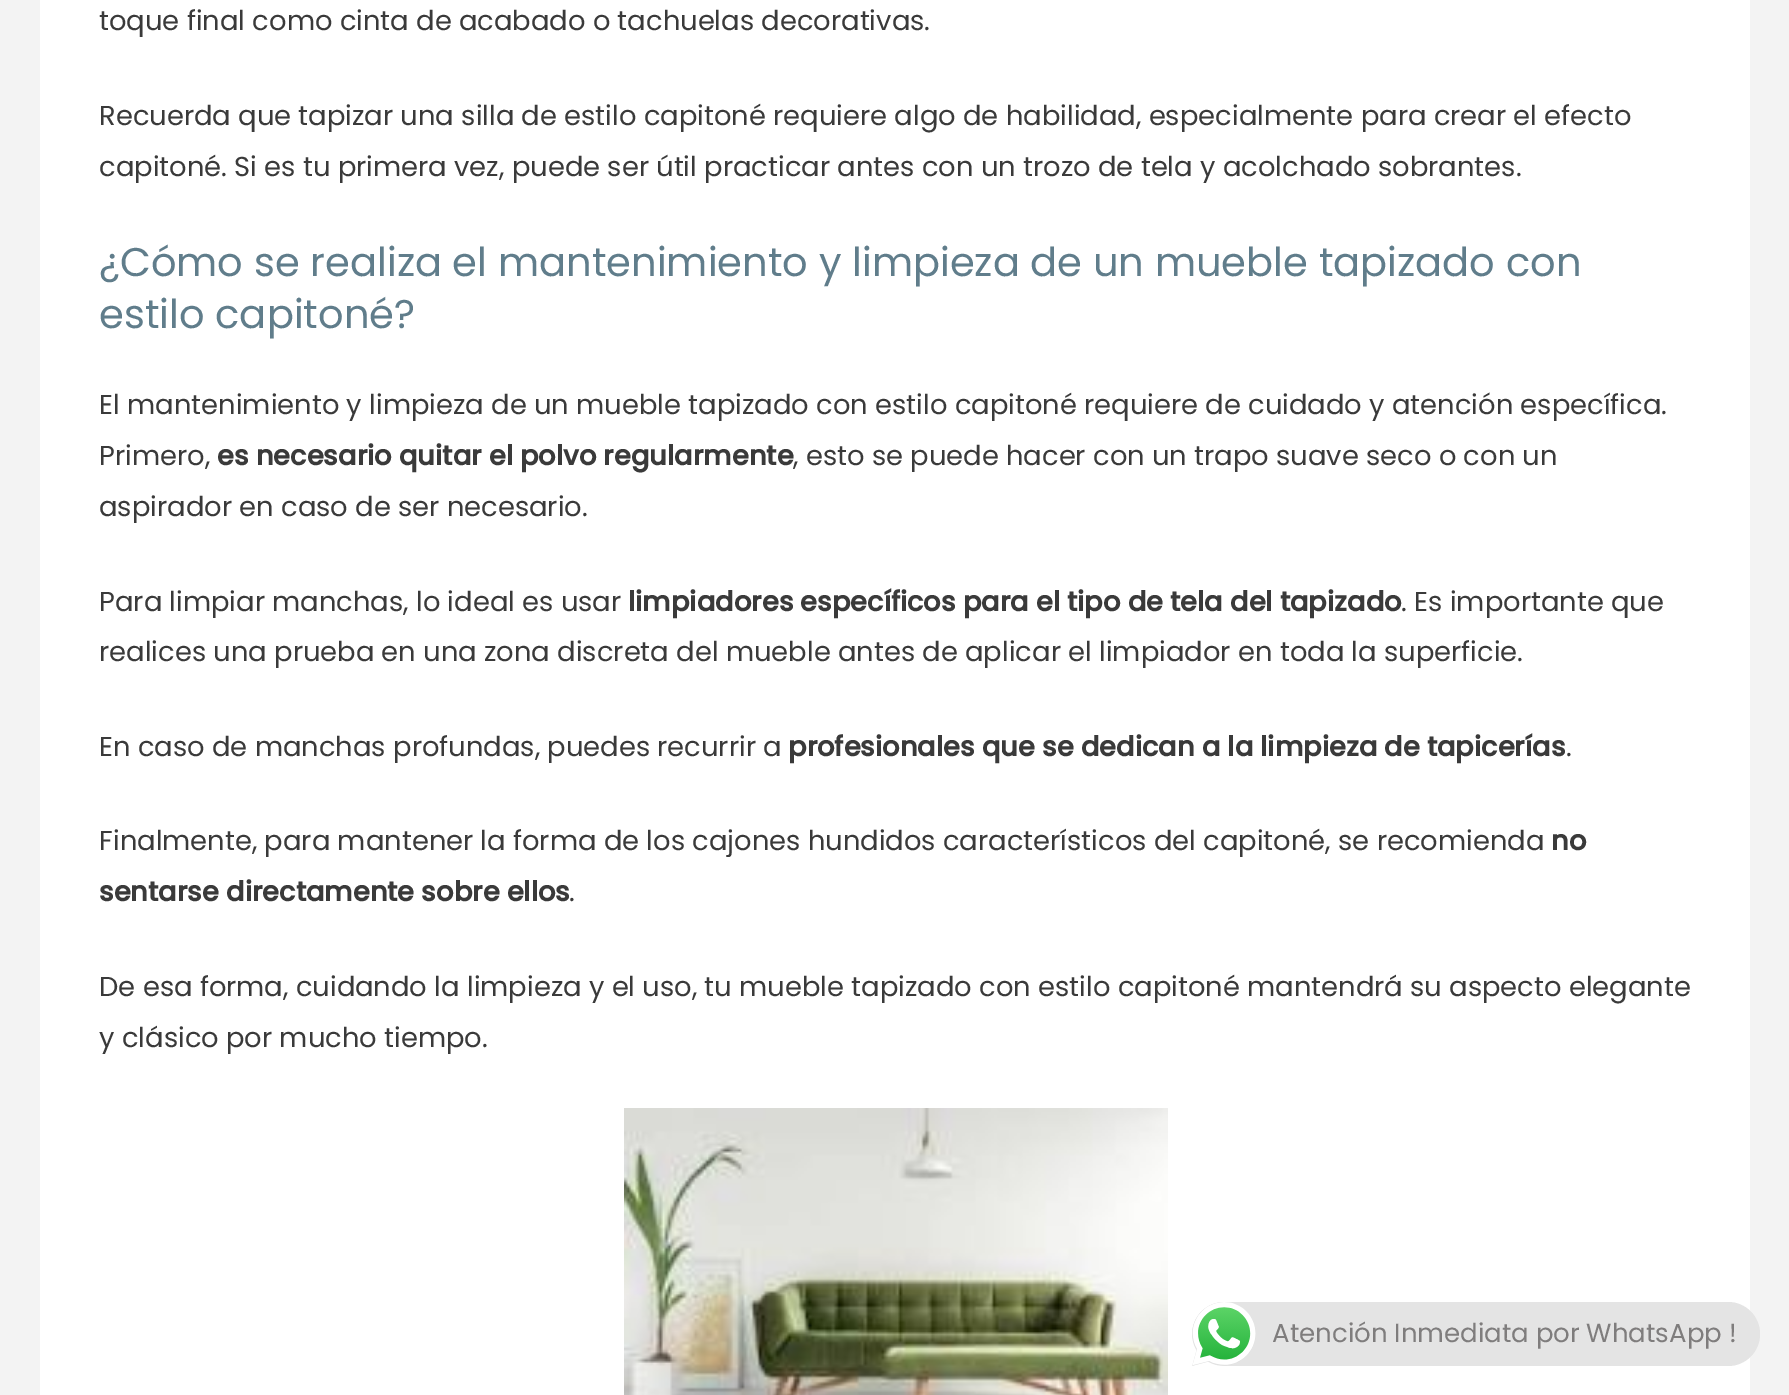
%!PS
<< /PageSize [1789 1395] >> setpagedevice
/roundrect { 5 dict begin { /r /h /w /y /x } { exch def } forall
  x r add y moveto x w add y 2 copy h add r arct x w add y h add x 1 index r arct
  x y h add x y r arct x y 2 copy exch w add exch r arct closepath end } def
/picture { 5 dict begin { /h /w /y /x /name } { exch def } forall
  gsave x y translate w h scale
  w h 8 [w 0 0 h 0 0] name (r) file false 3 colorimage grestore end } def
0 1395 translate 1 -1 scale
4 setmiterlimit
0.953 setgray
0 0 1789 1395 rectfill
1 setgray
40 0 1710 1395 rectfill
/Poppins-Regular [27.35 0 0 -27.35 0 0] selectfont
0.227 setgray
99 30 moveto (toque final como cinta de acabado o tachuelas decorativas.) show
99 125 moveto (Recuerda que tapizar una silla de estilo capitoné requiere algo de habilidad, especialmente para crear el efecto) show
99 176 moveto (capitoné. Si es tu primera vez, puede ser útil practicar antes con un trozo de tela y acolchado sobrantes.) show
/Poppins-Regular [40 0 0 -40 0 0] selectfont
0.376 0.49 0.545 setrgbcolor
99 276 moveto (¿Cómo se realiza el mantenimiento y limpieza de un mueble tapizado con) show
99 328 moveto (estilo capitoné?) show
/Poppins-Regular [27.35 0 0 -27.35 0 0] selectfont
0.227 setgray
99 414 moveto (El mantenimiento y limpieza de un mueble tapizado con estilo capitoné requiere de cuidado y atención específica.) show
99 465 moveto (Primero,) show
/Poppins-Bold [27.35 0 0 -27.35 0 0] selectfont
217 465 moveto (es necesario quitar el polvo regularmente) show
/Poppins-Regular [27.35 0 0 -27.35 0 0] selectfont
793 465 moveto (, esto se puede hacer con un trapo suave seco o con un) show
99 516 moveto (aspirador en caso de ser necesario.) show
99 611 moveto (Para limpiar manchas, lo ideal es usar) show
/Poppins-Bold [27.35 0 0 -27.35 0 0] selectfont
628 611 moveto (limpiadores específicos para el tipo de tela del tapizado) show
/Poppins-Regular [27.35 0 0 -27.35 0 0] selectfont
1401 611 moveto (. Es importante que) show
99 661 moveto (realices una prueba en una zona discreta del mueble antes de aplicar el limpiador en toda la superficie.) show
99 756 moveto (En caso de manchas profundas, puedes recurrir a) show
/Poppins-Bold [27.35 0 0 -27.35 0 0] selectfont
788 756 moveto (profesionales que se dedican a la limpieza de tapicerías) show
/Poppins-Regular [27.35 0 0 -27.35 0 0] selectfont
1566 756 moveto (.) show
99 850 moveto (Finalmente, para mantener la forma de los cajones hundidos característicos del capitoné, se recomienda) show
/Poppins-Bold [27.35 0 0 -27.35 0 0] selectfont
1551 850 moveto (no) show
99 901 moveto (sentarse directamente sobre ellos) show
/Poppins-Regular [27.35 0 0 -27.35 0 0] selectfont
569 901 moveto (.) show
99 996 moveto (De esa forma, cuidando la limpieza y el uso, tu mueble tapizado con estilo capitoné mantendrá su aspecto elegante) show
99 1047 moveto (y clásico por mucho tiempo.) show
(img1.rgb) 624 1108 544 287 picture
0.894 setgray
1192 1302 568 64 32 roundrect fill
(img2.rgb) 1192 1302 64 64 picture
/Poppins-Regular [26 0 0 -26 0 0] selectfont
0.498 0.49 0.49 setrgbcolor
1272 1342 moveto (Atención Inmediata por WhatsApp !) show
showpage
